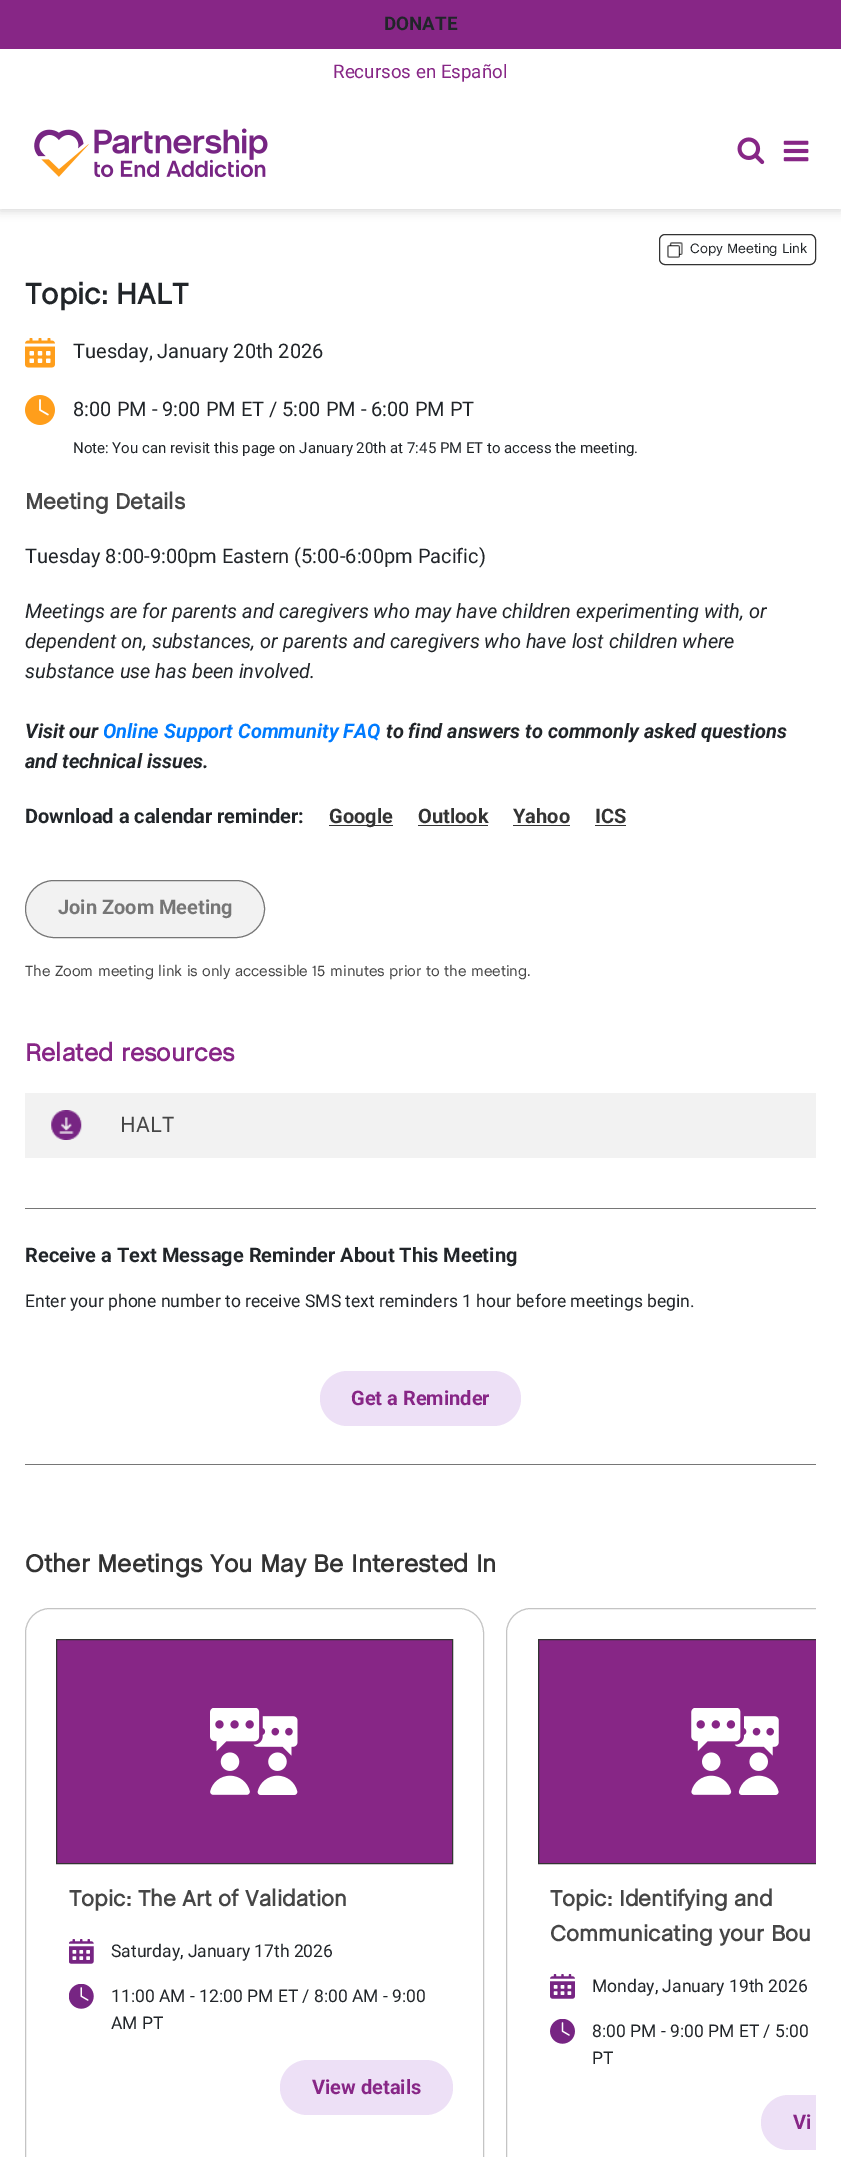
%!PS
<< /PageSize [841 2157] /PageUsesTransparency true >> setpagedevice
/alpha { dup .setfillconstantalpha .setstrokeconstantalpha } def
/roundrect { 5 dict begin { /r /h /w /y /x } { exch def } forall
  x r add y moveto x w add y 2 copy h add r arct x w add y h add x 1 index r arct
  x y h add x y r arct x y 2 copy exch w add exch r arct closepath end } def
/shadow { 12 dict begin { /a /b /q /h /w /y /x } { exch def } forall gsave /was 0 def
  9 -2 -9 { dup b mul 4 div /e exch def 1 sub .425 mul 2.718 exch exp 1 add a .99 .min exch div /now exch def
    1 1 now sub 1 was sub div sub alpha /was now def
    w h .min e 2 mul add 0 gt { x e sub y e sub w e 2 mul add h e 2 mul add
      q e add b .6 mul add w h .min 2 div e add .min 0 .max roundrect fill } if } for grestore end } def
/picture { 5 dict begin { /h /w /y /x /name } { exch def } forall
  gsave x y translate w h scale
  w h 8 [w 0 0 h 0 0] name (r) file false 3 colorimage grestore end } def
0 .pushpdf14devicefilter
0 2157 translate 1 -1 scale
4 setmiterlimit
1 setgray
0 0 841 2157 rectfill
0 setgray
0 3 841 208 0 5 0.15 shadow
1 setgray
0 49 841 160 rectfill
0.529 0.149 0.525 setrgbcolor
0 0 841 49 rectfill
/Roboto-Bold [18.75 0 0 -18.75 0 0] selectfont
0.129 0.145 0.161 setrgbcolor
384 30 moveto (DONATE) show
/Roboto-Regular [18.75 0 0 -18.75 0 0] selectfont
0.529 0.149 0.525 setrgbcolor
333 78 moveto (Recursos en Español) show
(img1.rgb) 34 128 234 50 picture
(img2.rgb) 737 137 28 28 picture
(img3.rgb) 783 140 26 22 picture
0.2 setgray
659.5 234.5 156 30 5.5 roundrect stroke
(img4.rgb) 667 242 16 16 picture
/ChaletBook-Regular [13.75 0 0 -13.75 0 0] selectfont
0.129 0.145 0.161 setrgbcolor
690 253 moveto (Copy Meeting Link) show
/ChaletBook-Bold [30 0 0 -30 0 0] selectfont
25 304 moveto (Topic: HALT) show
(img5.rgb) 25 338 30 30 picture
/Roboto-Regular [20 0 0 -20 0 0] selectfont
73 358 moveto (Tuesday, January 20th 2026) show
(img6.rgb) 25 395 30 30 picture
73 416 moveto (8:00 PM - 9:00 PM ET / 5:00 PM - 6:00 PM PT) show
/Roboto-Regular [15 0 0 -15 0 0] selectfont
73 453 moveto (Note: You can revisit this page on January 20th at 7:45 PM ET to access the meeting.) show
/ChaletBook-Bold [22.5 0 0 -22.5 0 0] selectfont
0.275 setgray
25 509 moveto (Meeting Details) show
/Roboto-Regular [20 0 0 -20 0 0] selectfont
0.129 0.145 0.161 setrgbcolor
25 563 moveto (Tuesday 8:00-9:00pm Eastern \(5:00-6:00pm Pacific\)) show
/Roboto-Italic [20 0 0 -20 0 0] selectfont
25 618 moveto (Meetings are for parents and caregivers who may have children experimenting with, or) show
25 648 moveto (dependent on, substances, or parents and caregivers who have lost children where) show
25 678 moveto (substance use has been involved.) show
/Roboto-BoldItalic [20 0 0 -20 0 0] selectfont
25 738 moveto (Visit our) show
0 0.482 1 setrgbcolor
103 738 moveto (Online Support Community FAQ) show
0.129 0.145 0.161 setrgbcolor
386 738 moveto (to find answers to commonly asked questions) show
25 768 moveto (and technical issues.) show
/Roboto-Bold [20 0 0 -20 0 0] selectfont
25 823 moveto (Download a calendar reminder:) show
0.2 setgray
329 825 64 1 rectfill
329 823 moveto (Google) show
418 823 moveto (Outlook) show
418 825 70 1 rectfill
513 823 moveto (Yahoo) show
513 825 57 1 rectfill
595 823 moveto (ICS) show
595 825 31 1 rectfill
0.949 setgray
25.5 880.5 239 57 28.5 roundrect gsave fill grestore
0.463 setgray
stroke
58 914 moveto (Join Zoom Meeting) show
/ChaletBook-Regular [15 0 0 -15 0 0] selectfont
0.275 setgray
25 976 moveto (The Zoom meeting link is only accessible 15 minutes prior to the meeting.) show
/ChaletBook-Bold [25 0 0 -25 0 0] selectfont
0.529 0.149 0.525 setrgbcolor
25 1061 moveto (Related resources) show
0.949 setgray
25 1093 791 65 rectfill
(img7.rgb) 51 1110 31 30 picture
/ChaletBook-Regular [22.5 0 0 -22.5 0 0] selectfont
0.275 setgray
120 1132 moveto (HALT) show
0.463 setgray
25 1208 791 1 rectfill
25 1464 791 1 rectfill
/Roboto-Bold [20 0 0 -20 0 0] selectfont
0.129 0.145 0.161 setrgbcolor
25 1262 moveto (Receive a Text Message Reminder About This Meeting) show
/Roboto-Regular [17.5 0 0 -17.5 0 0] selectfont
25 1307 moveto (Enter your phone number to receive SMS text reminders 1 hour before meetings begin.) show
0.929 0.878 0.965 setrgbcolor
320 1371 201 55 27.5 roundrect fill
/Roboto-Bold [20 0 0 -20 0 0] selectfont
0.529 0.149 0.525 setrgbcolor
351 1405 moveto (Get a Reminder) show
/ChaletBook-Bold [25 0 0 -25 0 0] selectfont
0.2 setgray
25 1572 moveto (Other Meetings You May Be Interested In) show
0.769 setgray
25.5 1608.5 458 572 24.5 roundrect stroke
0.529 0.149 0.525 setrgbcolor
newpath 56.5 1639.5 moveto 452.5 1639.5 lineto 452.5 1863.5 lineto 56.5 1863.5 lineto closepath gsave fill grestore
0.2 setgray
stroke
(img8.rgb) 210 1708 88 87 picture
/ChaletBook-Bold [22.5 0 0 -22.5 0 0] selectfont
0.275 setgray
69 1906 moveto (Topic: The Art of Validation) show
(img9.rgb) 69 1939 25 25 picture
/Roboto-Regular [17.5 0 0 -17.5 0 0] selectfont
0.129 0.145 0.161 setrgbcolor
111 1957 moveto (Saturday, January 17th 2026) show
(img10.rgb) 69 1984 25 25 picture
111 2002 moveto (11:00 AM - 12:00 PM ET / 8:00 AM - 9:00) show
111 2029 moveto (AM PT) show
0.929 0.878 0.965 setrgbcolor
280 2060 173 55 27.5 roundrect fill
/Roboto-Bold [20 0 0 -20 0 0] selectfont
0.529 0.149 0.525 setrgbcolor
312 2094 moveto (View details) show
gsave
25 1608 791 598 rectclip
0.769 setgray
506.5 1608.5 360 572 24.5 roundrect stroke
grestore
539 1640 277 223 rectfill
gsave
25 1608 791 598 rectclip
0.2 setgray
538.5 1639.5 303 224 rectstroke
grestore
(img11.rgb) 691 1708 88 87 picture
/ChaletBook-Bold [22.5 0 0 -22.5 0 0] selectfont
0.275 setgray
550 1906 moveto (Topic: Identifying and) show
550 1941 moveto (Communicating your Bou) show
(img12.rgb) 550 1974 25 25 picture
/Roboto-Regular [17.5 0 0 -17.5 0 0] selectfont
0.129 0.145 0.161 setrgbcolor
592 1992 moveto (Monday, January 19th 2026) show
(img13.rgb) 550 2019 25 25 picture
592 2037 moveto (8:00 PM - 9:00 PM ET / 5:00) show
592 2064 moveto (PT) show
0.929 0.878 0.965 setrgbcolor
newpath 788.5 2095 moveto 816 2095 lineto 816 2150 lineto 788.5 2150 lineto 773.5 2150 761 2137.5 761 2122.5 curveto 761 2107.5 773.5 2095 788.5 2095 curveto closepath fill
/Roboto-Bold [20 0 0 -20 0 0] selectfont
0.529 0.149 0.525 setrgbcolor
793 2129 moveto (Vi) show
.poppdf14devicefilter showpage
